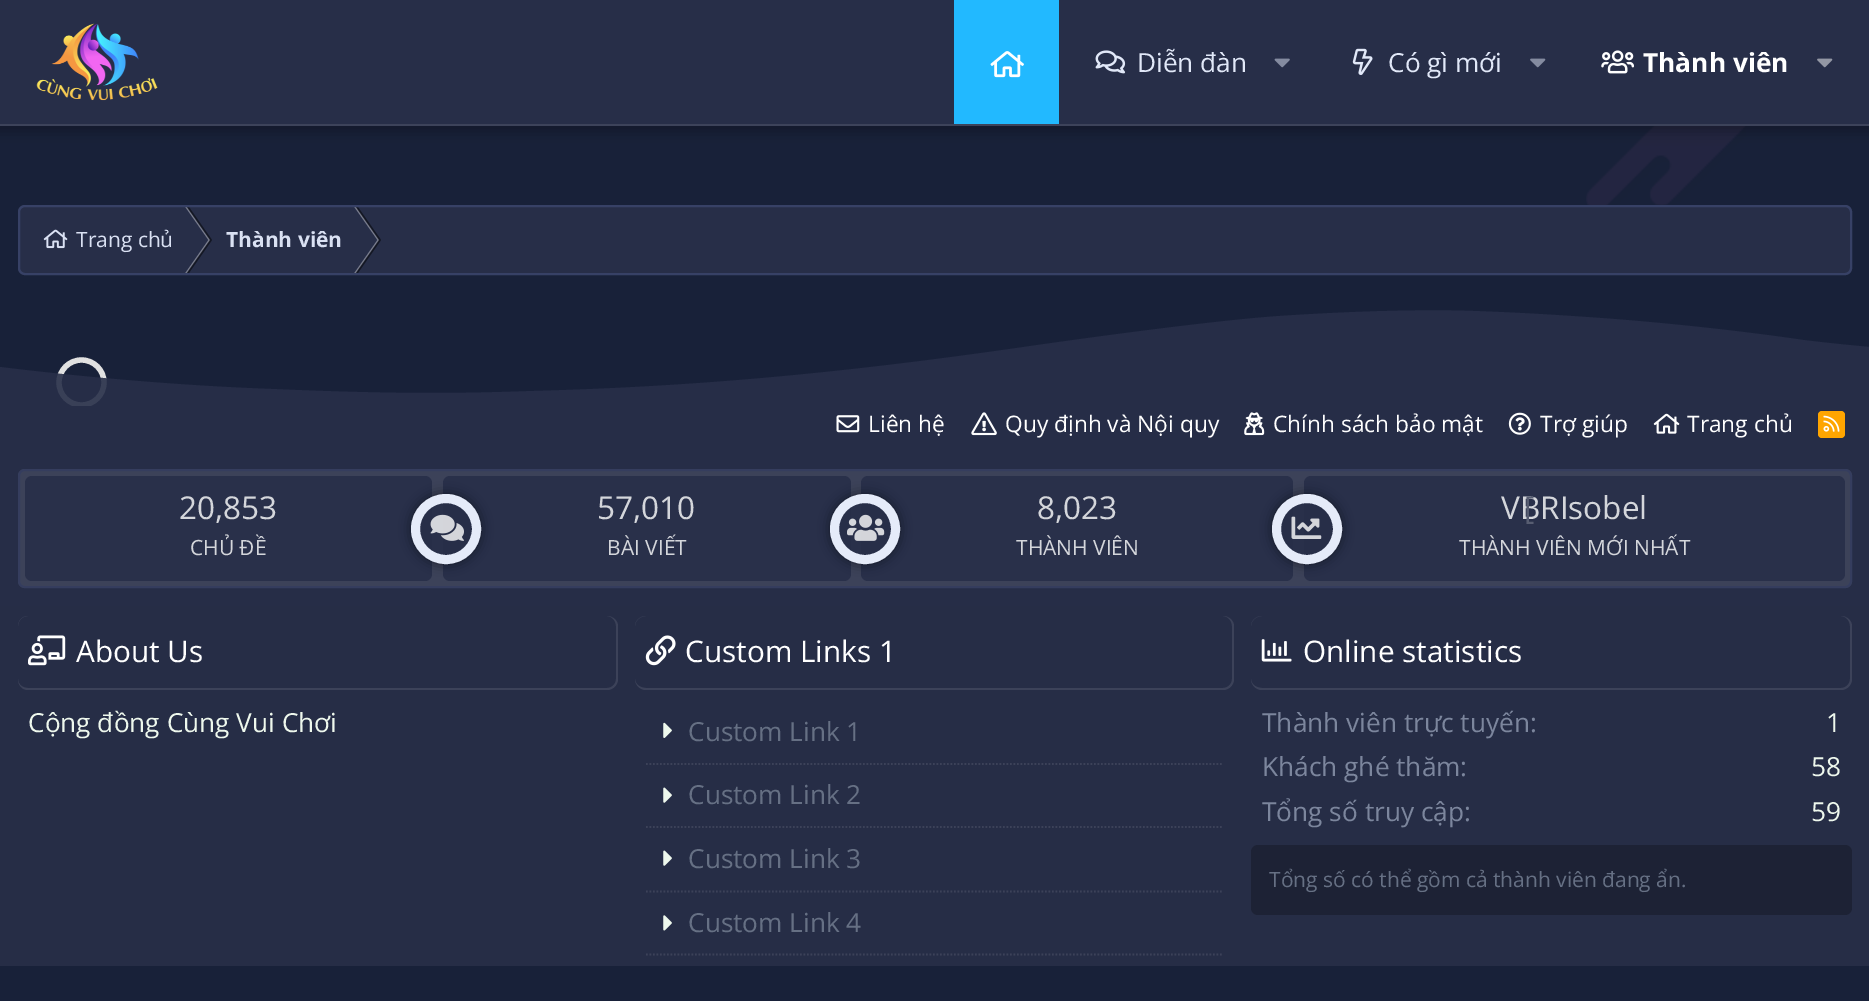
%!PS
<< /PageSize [1869 1001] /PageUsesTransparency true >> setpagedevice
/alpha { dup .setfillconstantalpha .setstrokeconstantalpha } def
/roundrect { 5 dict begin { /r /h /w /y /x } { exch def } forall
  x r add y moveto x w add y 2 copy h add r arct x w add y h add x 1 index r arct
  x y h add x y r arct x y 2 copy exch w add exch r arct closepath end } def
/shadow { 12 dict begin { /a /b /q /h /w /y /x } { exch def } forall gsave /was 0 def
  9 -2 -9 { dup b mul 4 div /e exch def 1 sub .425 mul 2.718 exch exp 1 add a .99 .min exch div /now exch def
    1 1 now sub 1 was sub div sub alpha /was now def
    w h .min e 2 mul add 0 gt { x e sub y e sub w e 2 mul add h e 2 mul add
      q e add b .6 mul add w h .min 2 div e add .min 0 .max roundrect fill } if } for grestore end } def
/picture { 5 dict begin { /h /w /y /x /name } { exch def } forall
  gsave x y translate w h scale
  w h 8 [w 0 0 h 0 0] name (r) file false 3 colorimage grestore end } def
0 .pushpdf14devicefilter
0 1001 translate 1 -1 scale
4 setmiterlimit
0.094 0.129 0.224 setrgbcolor
0 0 1869 1001 rectfill
(img9.rgb) 1586 126 160 79 picture
0 setgray
-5 -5 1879 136 0 7 0.3 shadow
0.153 0.18 0.282 setrgbcolor
0 0 1869 124 rectfill
0.239 0.263 0.353 setrgbcolor
0 124 1869 2 rectfill
(img1.rgb) 36 23 122 78 picture
0.133 0.725 1 setrgbcolor
954 0 105 124 rectfill
(img2.rgb) 990 51 34 27 picture
(img3.rgb) 1095 50 31 24 picture
/OpenSans-Regular [26.25 0 0 -26.25 0 0] selectfont
0.882 0.91 0.973 setrgbcolor
1137 72 moveto (Diễn đàn) show
(img4.rgb) 1274 58 16 10 picture
(img5.rgb) 1352 48 21 27 picture
1388 72 moveto (Có gì mới) show
(img6.rgb) 1530 58 16 10 picture
(img7.rgb) 1601 50 33 24 picture
/OpenSans-Bold [26.25 0 0 -26.25 0 0] selectfont
1 setgray
1643 72 moveto (Thành viên) show
(img8.rgb) 1817 58 16 10 picture
gsave
56 357 51 49 rectclip
0.882 setgray
5.3 setlinewidth
newpath 81.5 382.5 22.5 0 360 arc closepath stroke
grestore
0.153 0.18 0.282 setrgbcolor
18 205 1834 70 7 roundrect fill
(img10.rgb) 43 229 25 20 picture
0.475 0.49 0.557 setrgbcolor
newpath 184 205 moveto 185.5 205 lineto 210 240 lineto 208.5 240 lineto closepath fill
0.5 alpha
0 setgray
newpath 185.5 205 moveto 187.5 205 lineto 212 240 lineto 210 240 lineto closepath fill
1 alpha
0.475 0.49 0.557 setrgbcolor
newpath 208.5 240 moveto 210 240 lineto 185.5 275 lineto 184 275 lineto closepath fill
0.5 alpha
0 setgray
newpath 210 240 moveto 212 240 lineto 187.5 275 lineto 185.5 275 lineto closepath fill
1 alpha
0.475 0.49 0.557 setrgbcolor
newpath 353 205 moveto 354.5 205 lineto 379 240 lineto 377.5 240 lineto closepath fill
0.5 alpha
0 setgray
newpath 354.5 205 moveto 356.5 205 lineto 381 240 lineto 379 240 lineto closepath fill
1 alpha
0.475 0.49 0.557 setrgbcolor
newpath 377.5 240 moveto 379 240 lineto 354.5 275 lineto 353 275 lineto closepath fill
0.5 alpha
0 setgray
newpath 379 240 moveto 381 240 lineto 356.5 275 lineto 354.5 275 lineto closepath fill
1 alpha
0.216 0.255 0.4 setrgbcolor
2 setlinewidth
19 206 1832 68 6 roundrect stroke
/OpenSans-Regular [21 0 0 -21 0 0] selectfont
0.855 0.882 0.953 setrgbcolor
76 247 moveto (Trang chủ) show
/OpenSans-Bold [21 0 0 -21 0 0] selectfont
226 247 moveto (Thành viên) show
0.9 alpha
0.153 0.18 0.282 setrgbcolor
newpath 534 391 moveto 685 387 831 375 1024 347 curveto 1100 336 1220 320 1280 316 curveto 1340 312 1414 309 1473 311 curveto 1499 312 1530 313 1600 318 curveto 1670 323 1749 332 1803 340 curveto 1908 353 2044 359 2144 359 curveto 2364 361 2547 332 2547 332 curveto 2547 397 lineto 0 397 lineto 0 367 lineto 0 367 131 384 271 389 curveto 409 395 474 393 534 391 curveto closepath fill
0 397 1869 62 rectfill
1 alpha
(img11.rgb) 836 415 24 18 picture
/OpenSans-Regular [22.75 0 0 -22.75 0 0] selectfont
1 setgray
868 432 moveto (Liên hệ) show
(img12.rgb) 971 412 26 24 picture
1005 432 moveto (Quy định và Nội quy) show
(img13.rgb) 1244 412 21 24 picture
1273 432 moveto (Chính sách bảo mật) show
(img14.rgb) 1508 412 23 23 picture
1540 432 moveto (Trợ giúp) show
(img15.rgb) 1653 413 27 21 picture
1687 432 moveto (Trang chủ) show
1 0.647 0 setrgbcolor
1818 411 27 27 4 roundrect fill
(img16.rgb) 1823 415 17 17 picture
0.149 0.176 0.278 setrgbcolor
0 459 1869 147 rectfill
0.235 0.259 0.349 setrgbcolor
18 469 1834 119 7 roundrect fill
0.9 alpha
0.204 0.239 0.373 setrgbcolor
19 470 1832 117 6 roundrect stroke
1 alpha
0.161 0.188 0.29 setrgbcolor
25 476 407 105 7 roundrect fill
/OpenSans-Regular [31.5 0 0 -31.5 0 0] selectfont
0.831 0.839 0.859 setrgbcolor
179 519 moveto (20,853) show
/OpenSans-Regular [21 0 0 -21 0 0] selectfont
190 555 moveto (CHỦ ĐỀ) show
0.161 0.188 0.29 setrgbcolor
443 476 408 105 7 roundrect fill
gsave
newpath 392 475 moveto 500 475 lineto 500 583 lineto 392 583 lineto closepath 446 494 moveto 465.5 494 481 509.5 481 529 curveto 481 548.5 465.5 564 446 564 curveto 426.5 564 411 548.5 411 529 curveto 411 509.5 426.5 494 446 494 curveto closepath eoclip newpath
0 setgray
411 494 70 70 35 6 0.5 shadow
grestore
0.9 alpha
0.153 0.18 0.282 setrgbcolor
newpath 446 529 30.5 0 360 arc closepath fill
1 alpha
0.898 0.922 0.976 setrgbcolor
9 setlinewidth
newpath 446 529 30.5 0 360 arc closepath stroke
(img17.rgb) 430 514 34 27 picture
/OpenSans-Regular [31.5 0 0 -31.5 0 0] selectfont
0.831 0.839 0.859 setrgbcolor
597 519 moveto (57,010) show
/OpenSans-Regular [21 0 0 -21 0 0] selectfont
607 555 moveto (BÀI VIẾT) show
0.161 0.188 0.29 setrgbcolor
861 476 432 105 7 roundrect fill
gsave
newpath 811 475 moveto 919 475 lineto 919 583 lineto 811 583 lineto closepath 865 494 moveto 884.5 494 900 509.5 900 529 curveto 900 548.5 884.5 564 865 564 curveto 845.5 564 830 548.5 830 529 curveto 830 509.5 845.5 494 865 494 curveto closepath eoclip newpath
0 setgray
830 494 70 70 35 6 0.5 shadow
grestore
0.9 alpha
0.153 0.18 0.282 setrgbcolor
newpath 865 529 30.5 0 360 arc closepath fill
1 alpha
0.898 0.922 0.976 setrgbcolor
newpath 865 529 30.5 0 360 arc closepath stroke
(img18.rgb) 847 514 38 27 picture
/OpenSans-Regular [31.5 0 0 -31.5 0 0] selectfont
0.831 0.839 0.859 setrgbcolor
1037 519 moveto (8,023) show
/OpenSans-Regular [21 0 0 -21 0 0] selectfont
1016 555 moveto (THÀNH VIÊN) show
0.161 0.188 0.29 setrgbcolor
1304 476 541 105 7 roundrect fill
gsave
newpath 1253 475 moveto 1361 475 lineto 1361 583 lineto 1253 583 lineto closepath 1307 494 moveto 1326.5 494 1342 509.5 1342 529 curveto 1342 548.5 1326.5 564 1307 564 curveto 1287.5 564 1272 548.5 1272 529 curveto 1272 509.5 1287.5 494 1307 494 curveto closepath eoclip newpath
0 setgray
1272 494 70 70 35 6 0.5 shadow
grestore
0.9 alpha
0.153 0.18 0.282 setrgbcolor
newpath 1307 529 30.5 0 360 arc closepath fill
1 alpha
0.898 0.922 0.976 setrgbcolor
newpath 1307 529 30.5 0 360 arc closepath stroke
(img19.rgb) 1291 516 31 23 picture
/OpenSans-Regular [31.5 0 0 -31.5 0 0] selectfont
0.831 0.839 0.859 setrgbcolor
1501 519 moveto (VBRIsobel) show
0.341 0.365 0.443 setrgbcolor
1524 519 moveto ([) show
/OpenSans-Regular [21 0 0 -21 0 0] selectfont
0.831 0.839 0.859 setrgbcolor
1459 555 moveto (THÀNH VIÊN MỚI NHẤT) show
0.149 0.176 0.275 setrgbcolor
0 606 1869 360 rectfill
0.235 0.259 0.349 setrgbcolor
newpath 28 616 moveto 607 616 lineto 613 616 618 621 618 626 curveto 618 679 lineto 618 685 613 690 607 690 curveto 28 690 lineto 22 690 18 685 18 679 curveto 18 626 lineto 18 621 22 616 28 616 curveto closepath 28 616 moveto 607 616 lineto 612 616 616 621 616 626 curveto 616 679 lineto 616 684 612 688 607 688 curveto 28 688 lineto 22 688 18 684 18 679 curveto 18 626 lineto 18 621 22 616 28 616 curveto closepath eofill
(img20.rgb) 28 635 38 31 picture
/OpenSans-Regular [29.75 0 0 -29.75 0 0] selectfont
1 setgray
76 662 moveto (About Us) show
/OpenSans-Regular [26.25 0 0 -26.25 0 0] selectfont
0.933 0.973 0.929 setrgbcolor
28 732 moveto (Cộng đồng Cùng Vui Chơi) show
0.235 0.259 0.349 setrgbcolor
newpath 646 616 moveto 1223 616 lineto 1229 616 1234 621 1234 626 curveto 1234 679 lineto 1234 685 1229 690 1223 690 curveto 646 690 lineto 640 690 635 685 635 679 curveto 635 626 lineto 635 621 640 616 646 616 curveto closepath 646 616 moveto 1223 616 lineto 1228 616 1232 621 1232 626 curveto 1232 679 lineto 1232 684 1228 688 1223 688 curveto 646 688 lineto 640 688 635 684 635 679 curveto 635 626 lineto 635 621 640 616 646 616 curveto closepath eofill
(img21.rgb) 645 635 31 31 picture
/OpenSans-Regular [29.75 0 0 -29.75 0 0] selectfont
1 setgray
685 662 moveto (Custom Links 1) show
0.235 0.259 0.349 setrgbcolor
1.8 setlinewidth
[1.75 1.75] 0 setdash
newpath 646 764 moveto 1223 764 lineto stroke
(img22.rgb) 663 722 9 16 picture
/OpenSans-Regular [26.25 0 0 -26.25 0 0] selectfont
0.4 0.439 0.518 setrgbcolor
688 741 moveto (Custom Link 1) show
0.235 0.259 0.349 setrgbcolor
newpath 646 827 moveto 1223 827 lineto stroke
(img23.rgb) 663 787 9 16 picture
0.4 0.439 0.518 setrgbcolor
688 804 moveto (Custom Link 2) show
0.235 0.259 0.349 setrgbcolor
newpath 646 891.5 moveto 1223 891.5 lineto stroke
(img23.rgb) 663 850 9 16 picture
0.4 0.439 0.518 setrgbcolor
688 868 moveto (Custom Link 3) show
0.235 0.259 0.349 setrgbcolor
newpath 646 954.5 moveto 1223 954.5 lineto stroke
(img24.rgb) 663 915 9 16 picture
0.4 0.439 0.518 setrgbcolor
688 932 moveto (Custom Link 4) show
0.235 0.259 0.349 setrgbcolor
newpath 1262 616 moveto 1841 616 lineto 1847 616 1852 621 1852 626 curveto 1852 679 lineto 1852 685 1847 690 1841 690 curveto 1262 690 lineto 1256 690 1251 685 1251 679 curveto 1251 626 lineto 1251 621 1256 616 1262 616 curveto closepath 1262 616 moveto 1841 616 lineto 1846 616 1850 621 1850 626 curveto 1850 679 lineto 1850 684 1846 688 1841 688 curveto 1262 688 lineto 1256 688 1251 684 1251 679 curveto 1251 626 lineto 1251 621 1256 616 1262 616 curveto closepath eofill
(img25.rgb) 1261 639 31 23 picture
/OpenSans-Regular [29.75 0 0 -29.75 0 0] selectfont
1 setgray
1303 662 moveto (Online statistics) show
/OpenSans-Regular [26.25 0 0 -26.25 0 0] selectfont
0.486 0.525 0.616 setrgbcolor
1262 732 moveto (Thành viên trực tuyến:) show
0.933 0.973 0.929 setrgbcolor
1826 732 moveto (1) show
0.486 0.525 0.616 setrgbcolor
1262 776 moveto (Khách ghé thăm:) show
0.933 0.973 0.929 setrgbcolor
1811 776 moveto (58) show
0.486 0.525 0.616 setrgbcolor
1262 821 moveto (Tổng số truy cập:) show
0.933 0.973 0.929 setrgbcolor
1811 821 moveto (59) show
0.114 0.133 0.208 setrgbcolor
1251 845 601 70 7 roundrect fill
/OpenSans-Regular [21 0 0 -21 0 0] selectfont
0.4 0.439 0.518 setrgbcolor
1269 887 moveto (Tổng số có thể gồm cả thành viên đang ẩn.) show
.poppdf14devicefilter showpage
